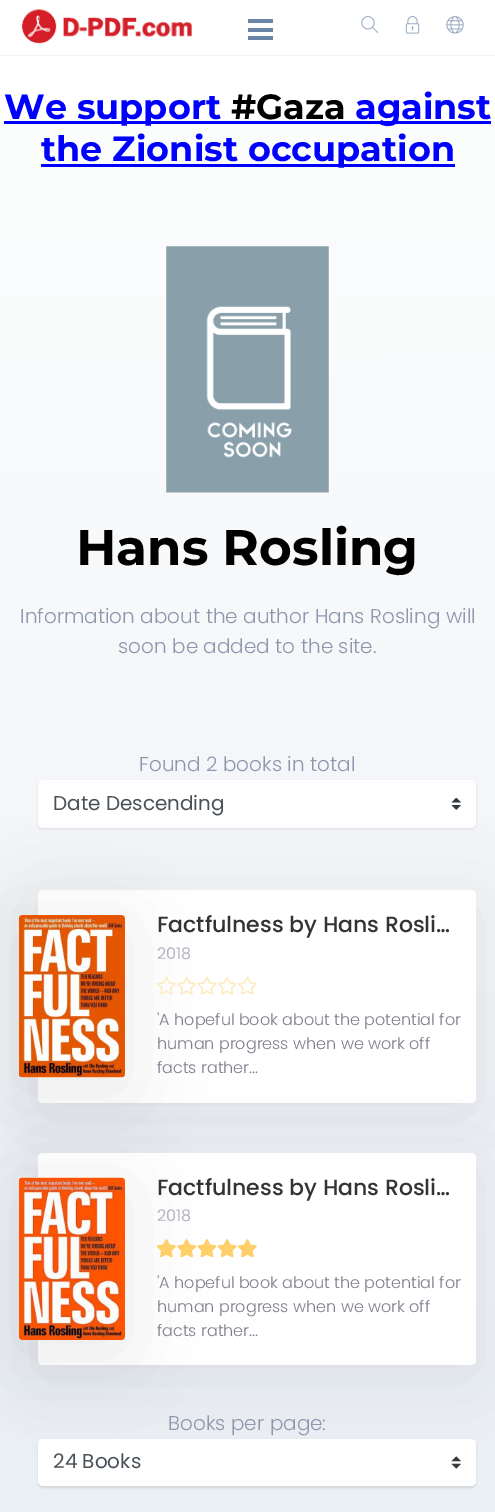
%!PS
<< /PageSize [495 1512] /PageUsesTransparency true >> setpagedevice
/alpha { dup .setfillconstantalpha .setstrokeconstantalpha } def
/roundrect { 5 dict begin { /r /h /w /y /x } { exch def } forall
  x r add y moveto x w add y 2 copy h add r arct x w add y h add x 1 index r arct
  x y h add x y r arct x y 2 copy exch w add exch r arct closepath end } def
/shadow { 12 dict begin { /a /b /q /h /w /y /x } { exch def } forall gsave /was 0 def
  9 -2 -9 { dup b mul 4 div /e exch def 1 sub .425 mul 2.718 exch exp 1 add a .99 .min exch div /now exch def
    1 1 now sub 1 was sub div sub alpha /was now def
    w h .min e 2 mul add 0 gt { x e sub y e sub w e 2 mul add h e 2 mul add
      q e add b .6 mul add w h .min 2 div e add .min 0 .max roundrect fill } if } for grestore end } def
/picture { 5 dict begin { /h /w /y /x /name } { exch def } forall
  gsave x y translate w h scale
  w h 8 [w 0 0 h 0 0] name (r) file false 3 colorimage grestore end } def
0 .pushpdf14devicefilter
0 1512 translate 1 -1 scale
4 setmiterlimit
1 setgray
0 0 495 1512 rectfill
gsave newpath 0 122 moveto 495 122 lineto 495 1512 lineto 0 1512 lineto closepath clip newpath
<< /ShadingType 2 /ColorSpace /DeviceRGB /Coords [247 0 248 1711] /Extend [true true] /Function << /FunctionType 2 /Domain [0 1] /C0 [0.996 0.996 0.996] /C1 [0.914 0.933 0.953] /N 1 >> >> shfill grestore
0.953 setgray
0 55 495 1 rectfill
(img1.rgb) 21 9 171 35 picture
0.416 0.522 0.651 setrgbcolor
248 28 25 4 rectfill
248 19 25 4 rectfill
248 36 25 4 rectfill
(img2.rgb) 361 16 18 17 picture
(img3.rgb) 405 16 15 18 picture
(img4.rgb) 446 16 18 18 picture
0 0 1 setrgbcolor
4 121 487 3 rectfill
/Montserrat-Bold [35 0 0 -35 0 0] selectfont
4 119 moveto (We support) show
0 setgray
231 119 moveto (#Gaza) show
0 0 1 setrgbcolor
355 119 moveto (against) show
41 164 414 3 rectfill
41 161 moveto (the Zionist occupation) show
(img5.rgb) 166 246 163 247 picture
/Montserrat-Bold [50 0 0 -50 0 0] selectfont
0 setgray
76 565 moveto (Hans Rosling) show
/Poppins-Light [20 0 0 -20 0 0] selectfont
0.553 0.592 0.678 setrgbcolor
20 623 moveto (Information about the author Hans Rosling will) show
118 653 moveto (soon be added to the site.) show
139 771 moveto (Found 2 books in total) show
0.588 setgray
38 781 438 48 5 1 0.3 shadow
1 setgray
38 780 438 48 5 roundrect fill
(img6.rgb) 451 798 10 12 picture
/Poppins-Regular [20 0 0 -20 0 0] selectfont
0.286 0.314 0.341 setrgbcolor
53 810 moveto (Date Descending) show
0.114 0.114 0.122 setrgbcolor
38 903 438 212 5 37.5 0.09 shadow
1 setgray
38 890 438 213 5 roundrect fill
0.114 0.114 0.122 setrgbcolor
19 928 106 162 4 37.5 0.09 shadow
(img7.rgb) 18 915 107 163 picture
/Poppins-Medium [22 0 0 -22 0 0] selectfont
0.2 setgray
157 932 moveto (Factfulness by Hans Rosli…) show
/Poppins-Regular [16 0 0 -16 0 0] selectfont
0.698 0.706 0.765 setrgbcolor
157 959 moveto (2018) show
(img8.rgb) 157 976 100 19 picture
/Poppins-Light [16 0 0 -16 0 0] selectfont
0.49 0.494 0.549 setrgbcolor
157 1025 moveto ('A hopeful book about the potential for) show
157 1049 moveto (human progress when we work off) show
157 1073 moveto (facts rather...) show
0.114 0.114 0.122 setrgbcolor
38 1165 438 213 5 37.5 0.09 shadow
1 setgray
38 1153 438 212 5 roundrect fill
0.114 0.114 0.122 setrgbcolor
19 1190 106 163 4 37.5 0.09 shadow
(img9.rgb) 18 1177 107 163 picture
/Poppins-Medium [22 0 0 -22 0 0] selectfont
0.2 setgray
157 1195 moveto (Factfulness by Hans Rosli…) show
/Poppins-Regular [16 0 0 -16 0 0] selectfont
0.698 0.706 0.765 setrgbcolor
157 1221 moveto (2018) show
(img10.rgb) 157 1239 100 19 picture
(img11.rgb) 157 1239 100 19 picture
/Poppins-Light [16 0 0 -16 0 0] selectfont
0.49 0.494 0.549 setrgbcolor
157 1288 moveto ('A hopeful book about the potential for) show
157 1312 moveto (human progress when we work off) show
157 1336 moveto (facts rather...) show
/Poppins-Light [20 0 0 -20 0 0] selectfont
0.553 0.592 0.678 setrgbcolor
168 1430 moveto (Books per page:) show
0.588 setgray
38 1440 438 48 5 1 0.3 shadow
1 setgray
38 1439 438 47 5 roundrect fill
(img12.rgb) 451 1456 10 13 picture
/Poppins-Regular [20 0 0 -20 0 0] selectfont
0.286 0.314 0.341 setrgbcolor
53 1468 moveto (24 Books) show
.poppdf14devicefilter showpage
